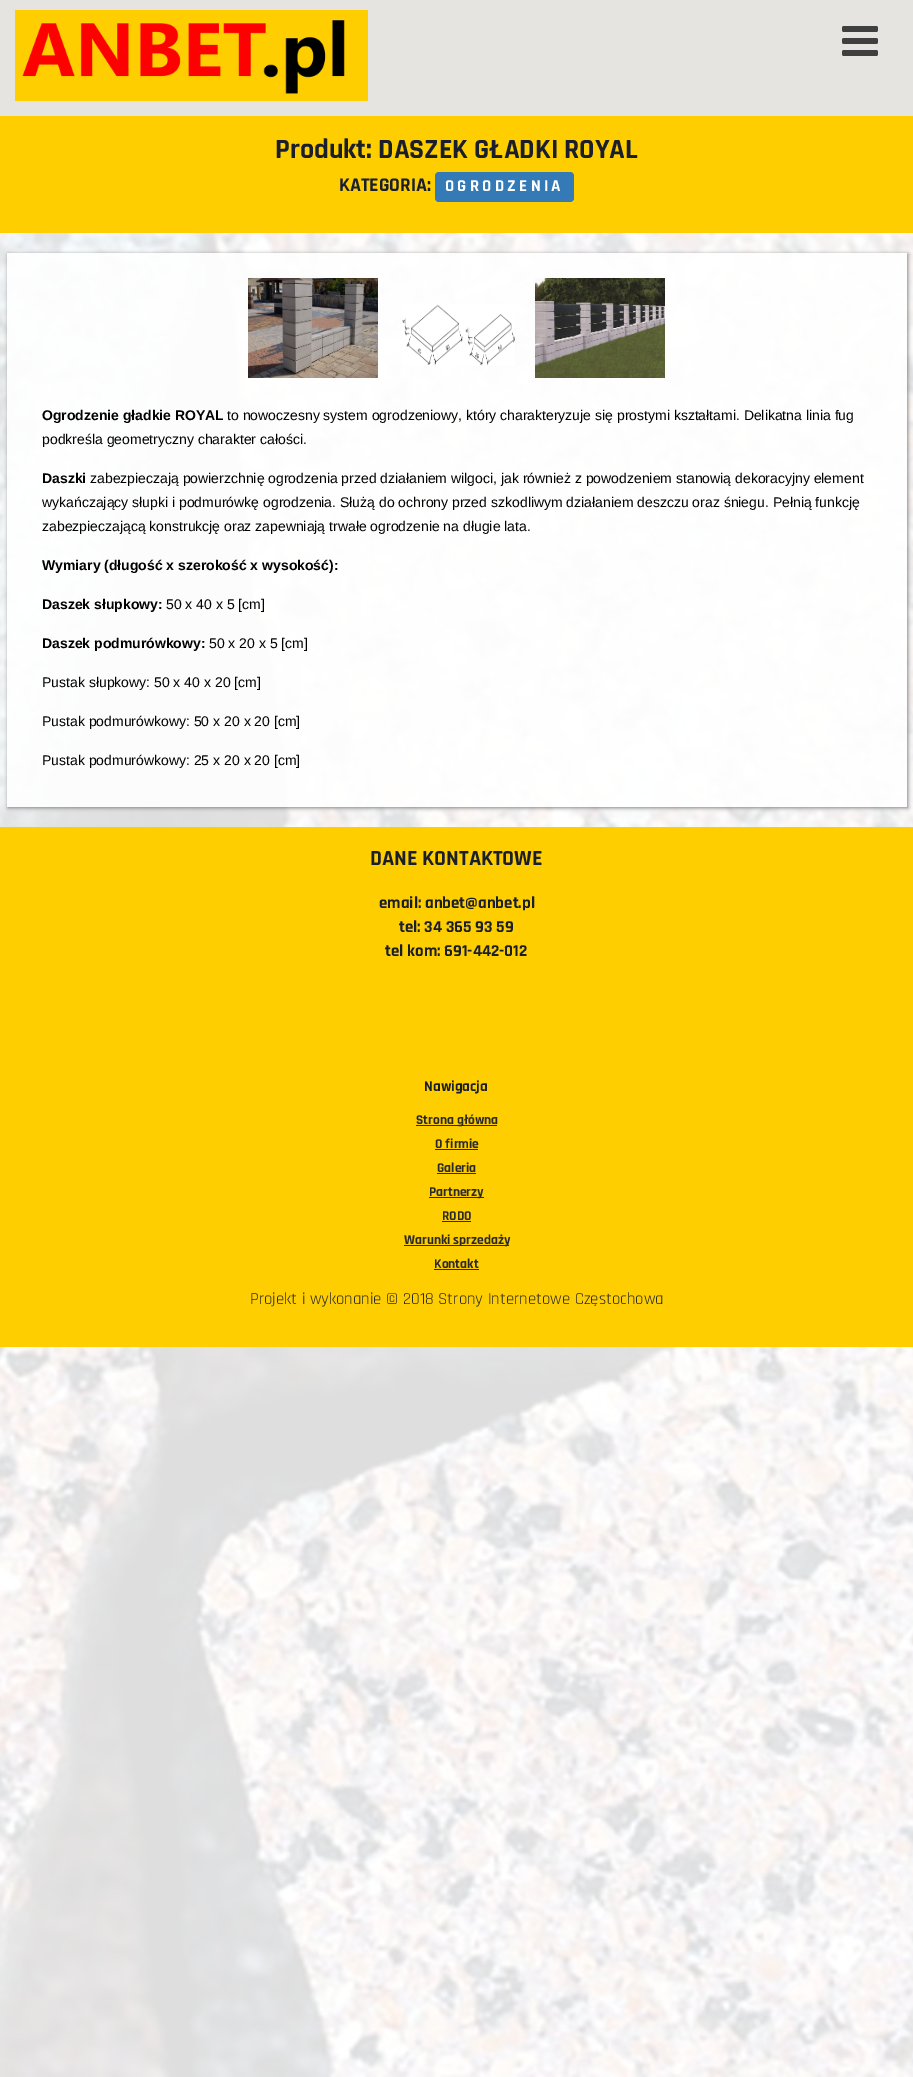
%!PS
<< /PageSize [913 2077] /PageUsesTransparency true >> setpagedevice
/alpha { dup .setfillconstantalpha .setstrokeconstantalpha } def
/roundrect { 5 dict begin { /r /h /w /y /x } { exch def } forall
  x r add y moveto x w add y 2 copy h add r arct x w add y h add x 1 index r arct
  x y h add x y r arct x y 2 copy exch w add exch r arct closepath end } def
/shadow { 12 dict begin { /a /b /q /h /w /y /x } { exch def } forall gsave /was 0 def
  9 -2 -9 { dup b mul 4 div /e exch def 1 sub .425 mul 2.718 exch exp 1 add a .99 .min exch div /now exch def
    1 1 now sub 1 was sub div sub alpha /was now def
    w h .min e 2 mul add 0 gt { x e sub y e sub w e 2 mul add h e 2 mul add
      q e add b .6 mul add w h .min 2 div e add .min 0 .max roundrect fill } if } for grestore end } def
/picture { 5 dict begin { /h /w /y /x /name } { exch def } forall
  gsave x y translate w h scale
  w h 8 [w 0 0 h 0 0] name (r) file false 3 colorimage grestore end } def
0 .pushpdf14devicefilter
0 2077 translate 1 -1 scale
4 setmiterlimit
1 setgray
0 0 913 2077 rectfill
0.898 0.894 0.882 setrgbcolor
0 0 913 116 rectfill
(img1.rgb) 15 10 353 91 picture
(img2.rgb) 842 26 36 30 picture
1 0.808 0 setrgbcolor
0 116 913 117 rectfill
/Rajdhani-Bold [28 0 0 -28 0 0] selectfont
0.106 0.122 0.169 setrgbcolor
275 158 moveto (Produkt: DASZEK GŁADKI ROYAL) show
/Rajdhani-Bold [19.5 0 0 -19.5 0 0] selectfont
339 191 moveto (KATEGORIA:) show
0.2 0.478 0.718 setrgbcolor
435 172 139 30 4 roundrect fill
/Rajdhani-Bold [16.75 0 0 -16.75 0 0] selectfont
1 setgray
445 191 moveto 3.25 0 (OGRODZENIA) ashow
(img3.rgb) 0 233 913 1844 picture
gsave
newpath 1 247 moveto 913 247 lineto 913 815 lineto 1 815 lineto closepath 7 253 moveto 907 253 lineto 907 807 lineto 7 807 lineto closepath eoclip newpath
0.502 setgray
8 254 900 554 0 2 1 shadow
grestore
0.9 alpha
7 253 900 554 rectfill
1 alpha
(img4.rgb) 248 278 130 100 picture
(img5.rgb) 402 304 113 62 picture
(img6.rgb) 535 278 130 100 picture
/LiberationSans-Bold [14 0 0 -14 0 0] selectfont
0 setgray
42 420 moveto (Ogrodzenie gładkie ROYAL) show
/LiberationSans-Regular [14 0 0 -14 0 0] selectfont
227 420 moveto (to nowoczesny system ogrodzeniowy, który charakteryzuje się prostymi kształtami. Delikatna linia fug) show
42 444 moveto (podkreśla geometryczny charakter całości.) show
/LiberationSans-Bold [14 0 0 -14 0 0] selectfont
42 483 moveto (Daszki) show
/LiberationSans-Regular [14 0 0 -14 0 0] selectfont
90 483 moveto (zabezpieczają powierzchnię ogrodzenia przed działaniem wilgoci, jak również z powodzeniem stanowią dekoracyjny element) show
42 507 moveto (wykańczający słupki i podmurówkę ogrodzenia. Służą do ochrony przed szkodliwym działaniem deszczu oraz śniegu. Pełnią funkcję) show
42 531 moveto (zabezpieczającą konstrukcję oraz zapewniają trwałe ogrodzenie na długie lata.) show
/LiberationSans-Bold [14 0 0 -14 0 0] selectfont
42 570 moveto (Wymiary \(długość x szerokość x wysokość\):) show
42 609 moveto (Daszek słupkowy:) show
/LiberationSans-Regular [14 0 0 -14 0 0] selectfont
166 609 moveto (50 x 40 x 5 [cm]) show
/LiberationSans-Bold [14 0 0 -14 0 0] selectfont
42 648 moveto (Daszek podmurówkowy:) show
/LiberationSans-Regular [14 0 0 -14 0 0] selectfont
209 648 moveto (50 x 20 x 5 [cm]) show
42 687 moveto (Pustak słupkowy: 50 x 40 x 20 [cm]) show
42 726 moveto (Pustak podmurówkowy: 50 x 20 x 20 [cm]) show
42 765 moveto (Pustak podmurówkowy: 25 x 20 x 20 [cm]) show
1 0.808 0 setrgbcolor
0 827 913 520 rectfill
/Rajdhani-Bold [21.75 0 0 -21.75 0 0] selectfont
0.106 0.122 0.169 setrgbcolor
370 865 moveto (DANE KONTAKTOWE) show
/Rajdhani-Bold [16.8 0 0 -16.8 0 0] selectfont
379 908 moveto (email: anbet@anbet.pl) show
399 932 moveto (tel: 34 365 93 59) show
385 956 moveto (tel kom: 691-442-012) show
/Rajdhani-Bold [15 0 0 -15 0 0] selectfont
424 1091 moveto (Nawigacja) show
0.165 setgray
416 1125 81 1 rectfill
/Rajdhani-Bold [13.5 0 0 -13.5 0 0] selectfont
416 1124 moveto (Strona główna) show
435 1148 moveto (O firmie) show
435 1149 43 1 rectfill
437 1172 moveto (Galeria) show
437 1173 39 1 rectfill
429 1197 55 1 rectfill
429 1196 moveto (Partnerzy) show
442 1220 moveto (RODO) show
442 1221 29 1 rectfill
404 1245 105 1 rectfill
404 1244 moveto (Warunki sprzedaży) show
434 1268 moveto (Kontakt) show
434 1269 45 1 rectfill
/Rajdhani-Regular [16.8 0 0 -16.8 0 0] selectfont
250 1304 moveto (Projekt i wykonanie © 2018 Strony Internetowe Częstochowa) show
.poppdf14devicefilter showpage
